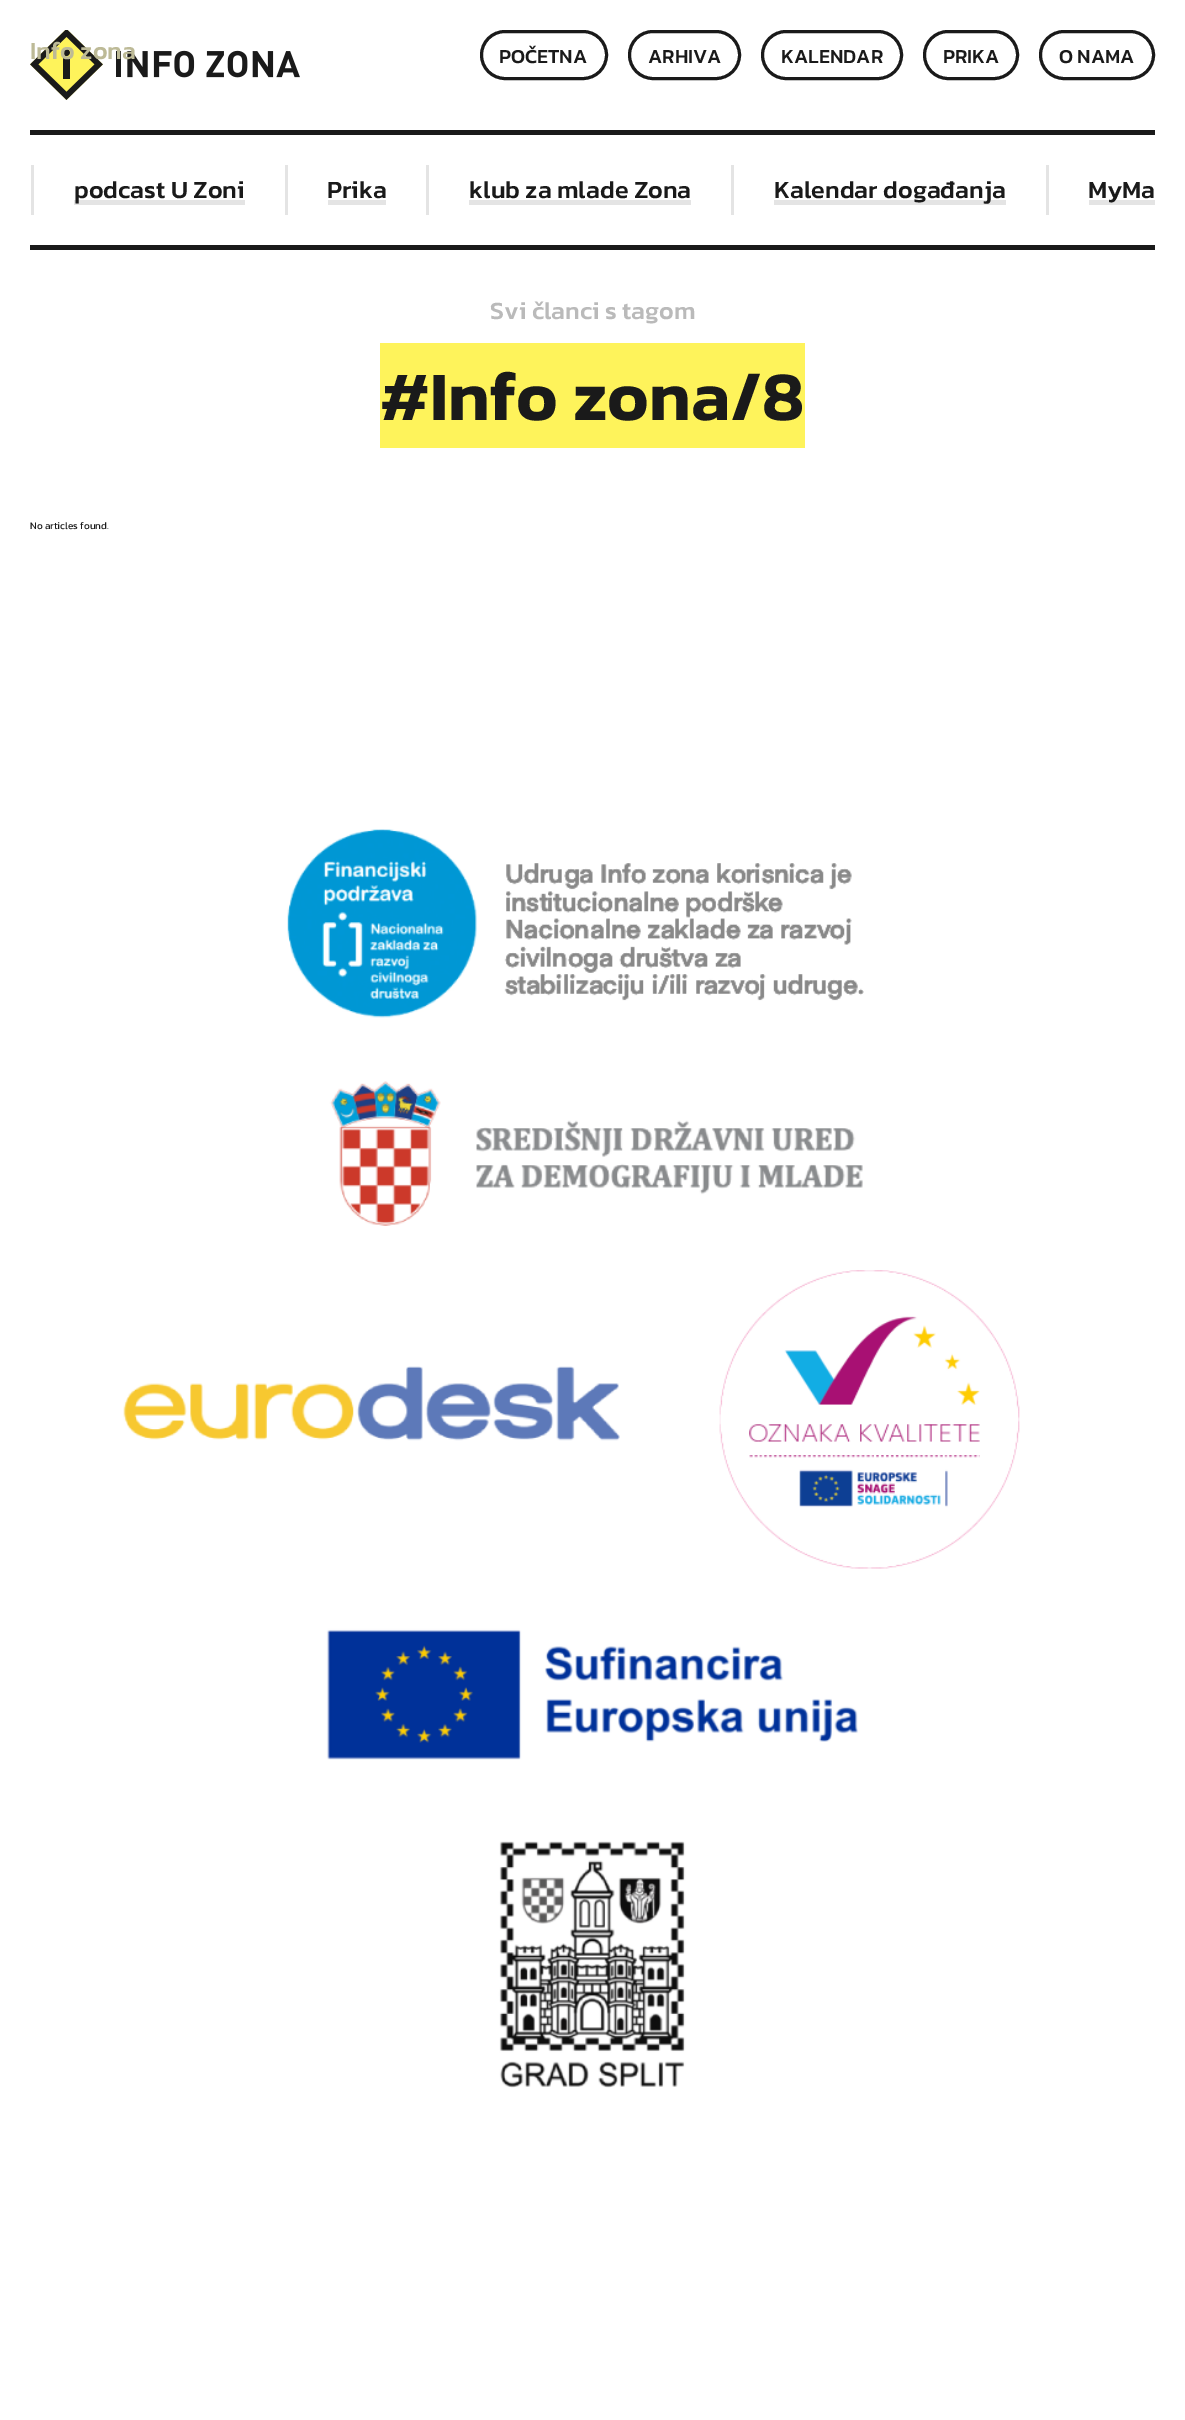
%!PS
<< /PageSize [1185 2420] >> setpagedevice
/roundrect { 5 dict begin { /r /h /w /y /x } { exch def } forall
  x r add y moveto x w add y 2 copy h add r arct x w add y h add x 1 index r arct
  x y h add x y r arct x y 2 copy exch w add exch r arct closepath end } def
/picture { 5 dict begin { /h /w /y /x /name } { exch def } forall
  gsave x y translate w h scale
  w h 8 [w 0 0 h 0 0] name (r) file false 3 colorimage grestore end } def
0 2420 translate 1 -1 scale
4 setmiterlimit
1 setgray
0 0 1185 2420 rectfill
0.102 setgray
30 130 1125 5 rectfill
(img1.rgb) 30 30 270 70 picture
/Kanit-Medium [25 0 0 -25 0 0] selectfont
0.741 0.729 0.592 setrgbcolor
30 59 moveto (Info zona) show
0.102 setgray
3 setlinewidth
481.5 31.5 125 47 23.5 roundrect stroke
/Kanit-Medium [20 0 0 -20 0 0] selectfont
499 63 moveto (POČETNA) show
629.5 31.5 110 47 23.5 roundrect stroke
648 63 moveto (ARHIVA) show
762.5 31.5 139 47 23.5 roundrect stroke
781 63 moveto (KALENDAR) show
924.5 31.5 93 47 23.5 roundrect stroke
943 63 moveto (PRIKA) show
1040.5 31.5 113 47 23.5 roundrect stroke
1059 63 moveto (O NAMA) show
30 245 1125 5 rectfill
0.894 setgray
31 165 3 50 rectfill
285 165 3 50 rectfill
74 200 171 5 rectfill
/Kanit-Medium [25 0 0 -25 0 0] selectfont
0.102 setgray
74 198 moveto (podcast U Zoni) show
0.894 setgray
426 165 3 50 rectfill
0.102 setgray
327 198 moveto (Prika) show
0.894 setgray
328 200 58 5 rectfill
731 165 3 50 rectfill
0.102 setgray
469 198 moveto (klub za mlade Zona) show
0.894 setgray
469 200 222 5 rectfill
1046 165 3 50 rectfill
774 200 232 5 rectfill
0.102 setgray
774 198 moveto (Kalendar događanja) show
0.894 setgray
1089 200 66 5 rectfill
0.102 setgray
1088 198 moveto (MyMa) show
0.729 setgray
490 319 moveto (Svi članci s tagom) show
0.996 0.953 0.357 setrgbcolor
380 343 425 105 rectfill
/Kanit-SemiBold [70 0 0 -70 0 0] selectfont
0.102 setgray
380 420 moveto (#Info zona/8) show
/Kanit-Regular [10 0 0 -10 0 0] selectfont
30 529 moveto (No articles found.) show
(img2.rgb) 123 829 897 1259 picture
showpage
